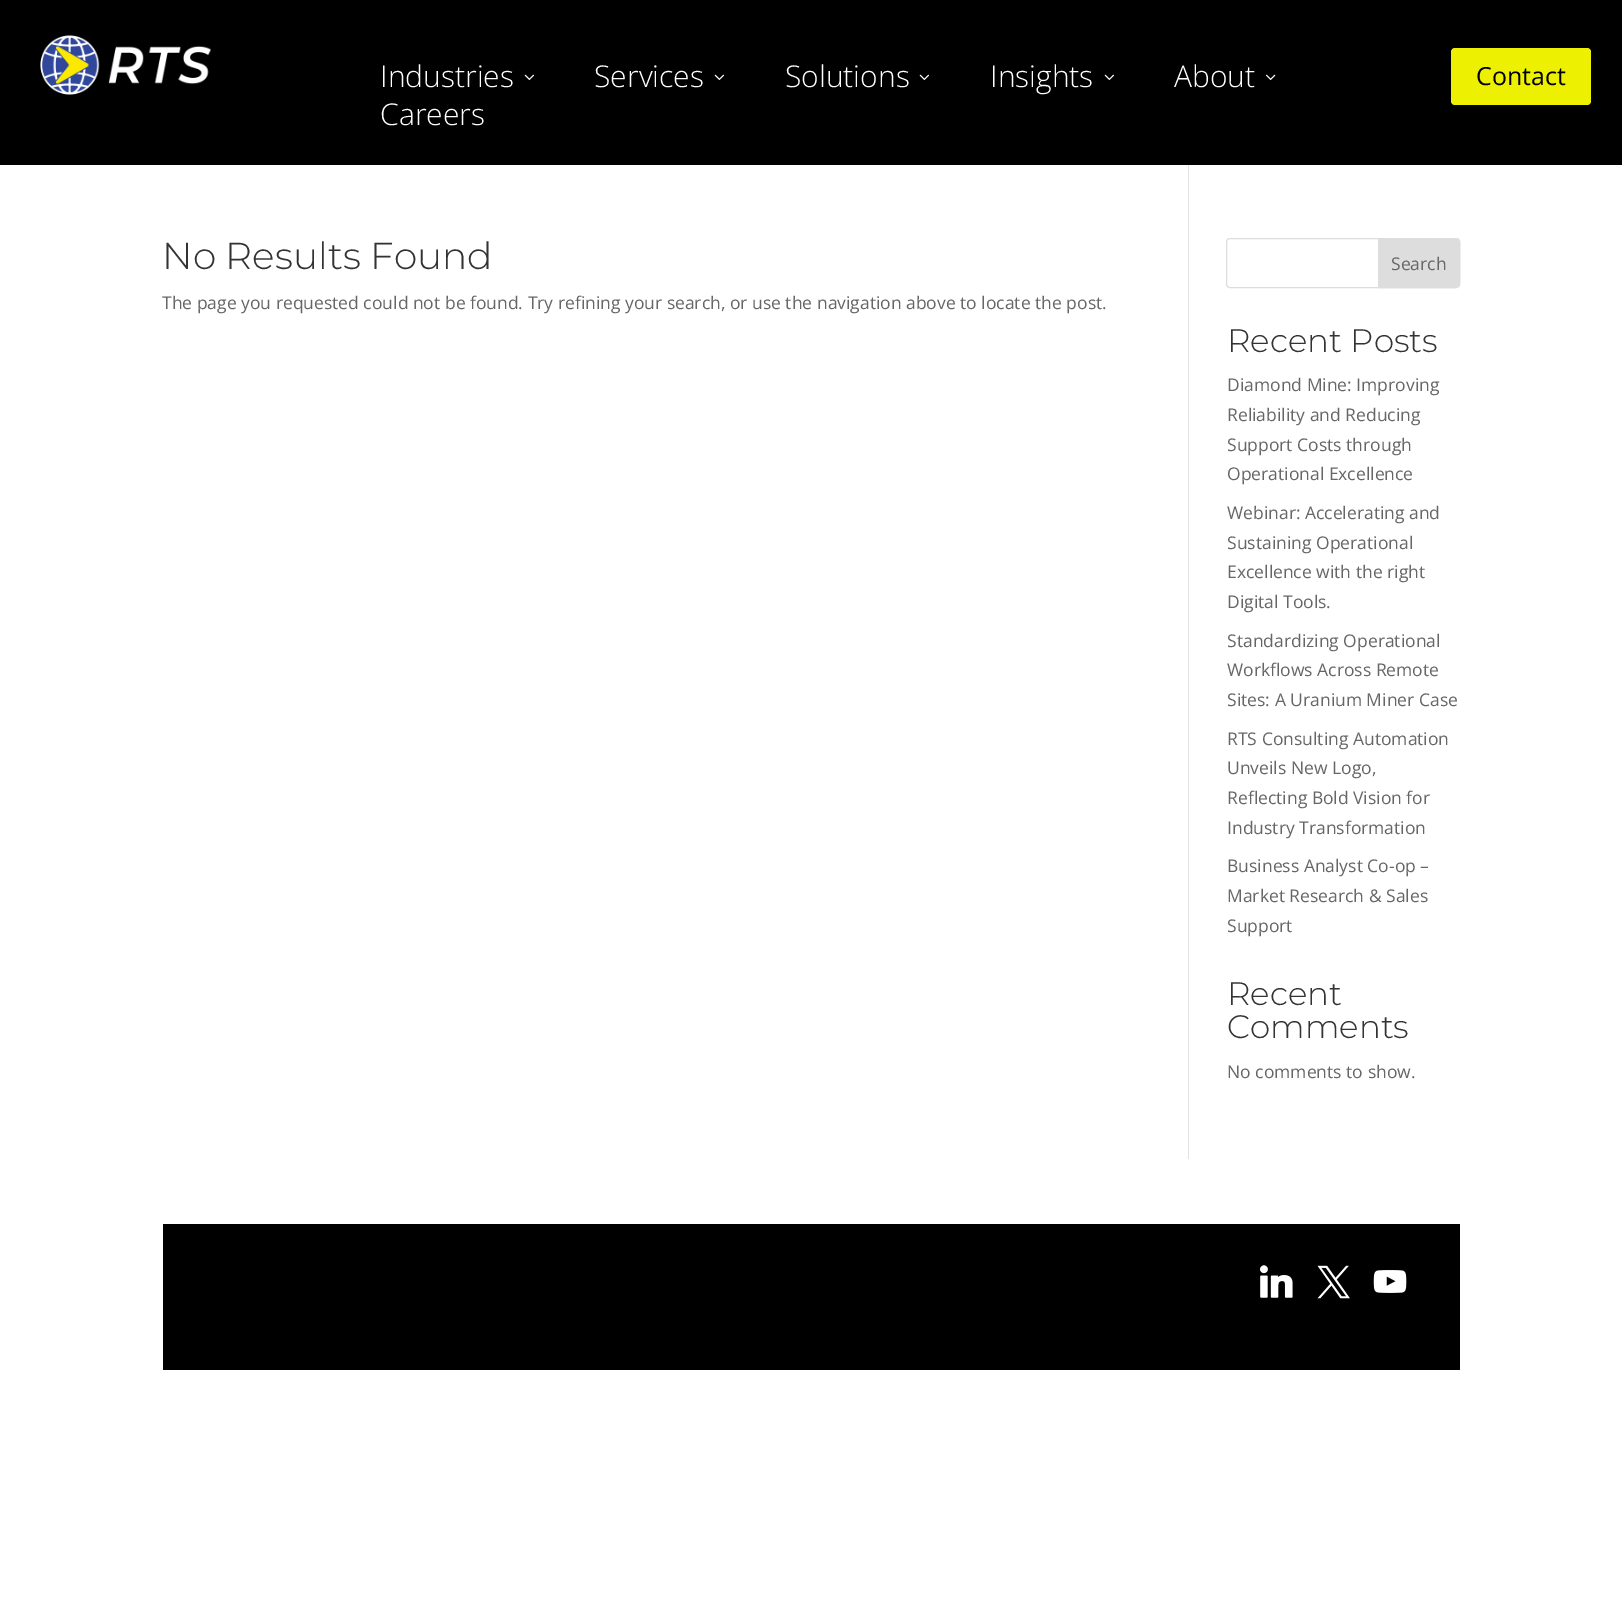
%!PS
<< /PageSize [1622 1620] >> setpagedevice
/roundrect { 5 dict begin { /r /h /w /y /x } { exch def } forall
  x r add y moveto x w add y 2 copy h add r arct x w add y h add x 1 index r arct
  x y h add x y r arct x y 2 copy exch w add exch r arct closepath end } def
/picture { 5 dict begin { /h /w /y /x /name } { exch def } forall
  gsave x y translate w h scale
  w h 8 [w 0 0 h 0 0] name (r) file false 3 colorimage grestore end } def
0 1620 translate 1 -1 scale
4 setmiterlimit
1 setgray
0 0 1622 1620 rectfill
0 setgray
0 0 1622 165 rectfill
(img1.rgb) 40 35 171 60 picture
/OpenSans-Light [30 0 0 -30 0 0] selectfont
1 setgray
380 87 moveto (Industries) show
(img2.rgb) 524 74 10 6 picture
594 87 moveto (Services) show
(img2.rgb) 714 74 10 6 picture
785 87 moveto (Solutions) show
(img2.rgb) 919 74 10 6 picture
990 87 moveto (Insights) show
(img2.rgb) 1104 74 10 6 picture
1174 87 moveto (About) show
(img3.rgb) 1266 74 10 6 picture
380 125 moveto (Careers) show
0.929 0.941 0 setrgbcolor
1451 48 140 57 4 roundrect fill
/OpenSans-Regular [25 0 0 -25 0 0] selectfont
0 setgray
1476 85 moveto (Contact) show
0.886 setgray
1188 165 1 994 rectfill
/Montserrat-Light [37.5 0 0 -37.5 0 0] selectfont
0.2 setgray
162 269 moveto (No Results Found) show
/OpenSans-Regular [17.5 0 0 -17.5 0 0] selectfont
0.4 setgray
162 309 moveto (The page you requested could not be found. Try refining your search, or use the navigation above to locate the post.) show
0.867 setgray
1226.5 238.5 233 49 3.5 roundrect stroke
newpath 1378.5 238.5 moveto 1456 238.5 lineto 1458 238.5 1459.5 240 1459.5 242 curveto 1459.5 284 lineto 1459.5 286 1458 287.5 1456 287.5 curveto 1378.5 287.5 lineto closepath gsave fill grestore
stroke
0.4 setgray
1391 270 moveto (Search) show
/Montserrat-Light [32.5 0 0 -32.5 0 0] selectfont
0.2 setgray
1227 352 moveto (Recent Posts) show
/OpenSans-Regular [17.5 0 0 -17.5 0 0] selectfont
0.4 setgray
1227 391 moveto (Diamond Mine: Improving) show
1227 421 moveto (Reliability and Reducing) show
1227 451 moveto (Support Costs through) show
1227 480 moveto (Operational Excellence) show
1227 519 moveto (Webinar: Accelerating and) show
1227 549 moveto (Sustaining Operational) show
1227 578 moveto (Excellence with the right) show
1227 608 moveto (Digital Tools.) show
1227 647 moveto (Standardizing Operational) show
1227 676 moveto (Workflows Across Remote) show
1227 706 moveto (Sites: A Uranium Miner Case) show
1227 745 moveto (RTS Consulting Automation) show
1227 774 moveto (Unveils New Logo,) show
1227 804 moveto (Reflecting Bold Vision for) show
1227 834 moveto (Industry Transformation) show
1227 872 moveto (Business Analyst Co-op –) show
1227 902 moveto (Market Research & Sales) show
1227 932 moveto (Support) show
/Montserrat-Light [32.5 0 0 -32.5 0 0] selectfont
0.2 setgray
1227 1005 moveto (Recent) show
1227 1038 moveto (Comments) show
/OpenSans-Regular [17.5 0 0 -17.5 0 0] selectfont
0.4 setgray
1227 1078 moveto (No comments to show.) show
0 setgray
163 1224 1297 146 rectfill
(img4.rgb) 1260 1265 33 33 picture
(img5.rgb) 1317 1265 33 34 picture
(img6.rgb) 1373 1270 34 23 picture
showpage
